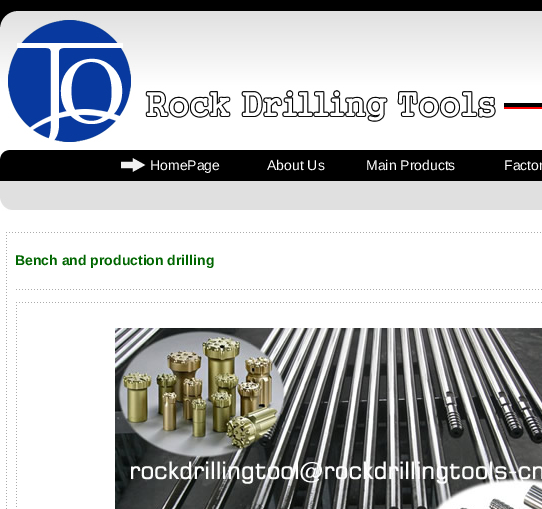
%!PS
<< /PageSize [542 509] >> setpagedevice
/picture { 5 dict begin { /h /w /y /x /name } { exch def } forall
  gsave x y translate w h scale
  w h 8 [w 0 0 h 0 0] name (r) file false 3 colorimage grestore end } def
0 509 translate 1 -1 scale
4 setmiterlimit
0 setgray
0 0 542 509 rectfill
(img1.rgb) 8 11 534 3 picture
(img2.rgb) 0 14 542 136 picture
(img3.rgb) 0 150 9 9 picture
(img4.rgb) 121 158 25 14 picture
/LiberationSans-Regular [14 0 0 -14 0 0] selectfont
1 setgray
150 170 moveto (HomePage) show
267 170 moveto (About Us) show
366 170 moveto (Main Products) show
504 170 moveto (Factor) show
(img5.rgb) 0 181 542 30 picture
0 211 542 298 rectfill
(img6.rgb) 6 232 535 1 picture
(img7.rgb) 6 235 1 274 picture
/LiberationSans-Bold [14 0 0 -14 0 0] selectfont
0 0.4 0 setrgbcolor
15 265 moveto (Bench and production drilling) show
(img8.rgb) 16 289 526 1 picture
(img9.rgb) 16 302 1 205 picture
(img10.rgb) 19 302 523 1 picture
(img11.rgb) 115 328 427 181 picture
showpage
